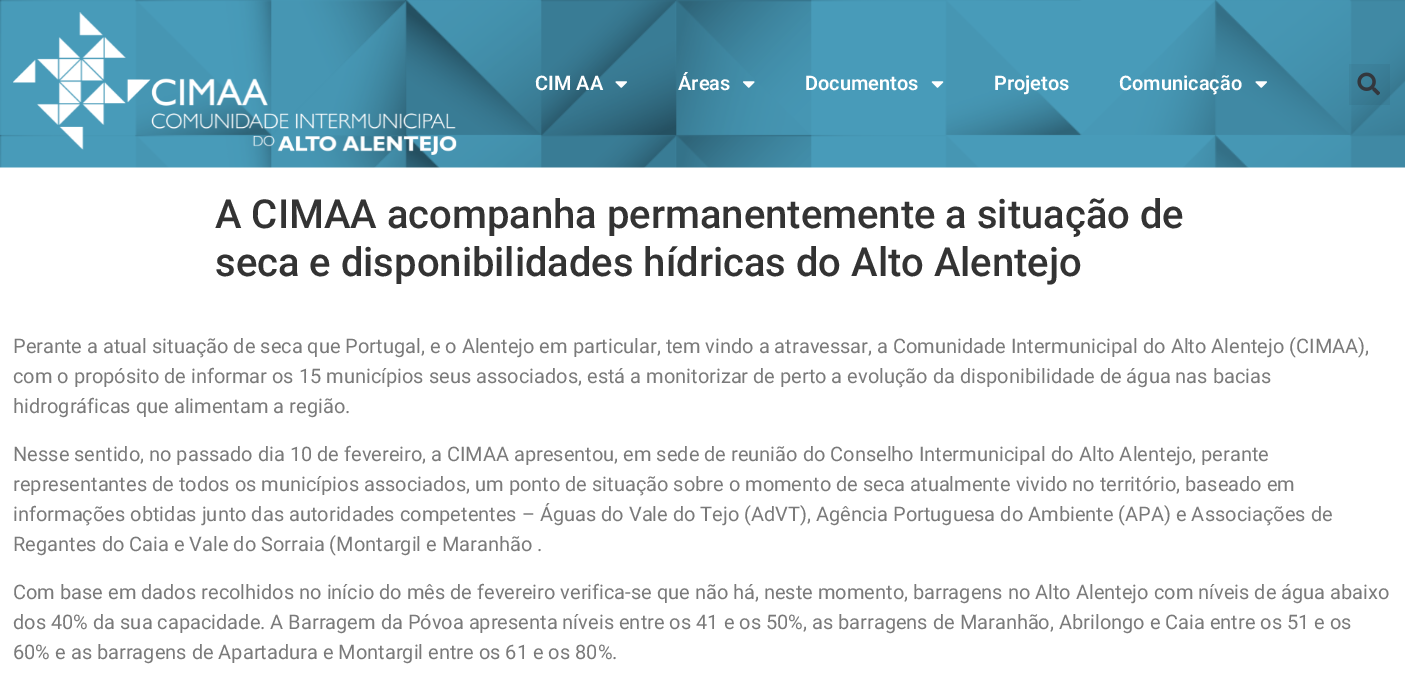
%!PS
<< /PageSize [1405 684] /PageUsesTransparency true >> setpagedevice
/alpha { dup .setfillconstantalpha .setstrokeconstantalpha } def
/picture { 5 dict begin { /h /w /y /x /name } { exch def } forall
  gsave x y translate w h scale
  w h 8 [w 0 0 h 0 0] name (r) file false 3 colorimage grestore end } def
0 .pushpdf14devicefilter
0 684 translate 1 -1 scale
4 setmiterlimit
1 setgray
0 0 1405 684 rectfill
(img1.rgb) 0 0 1405 168 picture
(img2.rgb) 13 12 444 143 picture
/Roboto-SemiBold [20 0 0 -20 0 0] selectfont
535 90 moveto (CIM AA) show
(img3.rgb) 615 81 12 7 picture
678 90 moveto (Áreas) show
(img4.rgb) 743 81 12 7 picture
805 90 moveto (Documentos) show
(img5.rgb) 931 81 13 7 picture
994 90 moveto (Projetos) show
1119 90 moveto (Comunicação) show
(img6.rgb) 1255 81 12 7 picture
0.05 alpha
0 setgray
1349 64 41 41 rectfill
1 alpha
(img7.rgb) 1357 72 23 24 picture
/Roboto-Medium [40 0 0 -40 0 0] selectfont
0.2 setgray
215 228 moveto (A CIMAA acompanha permanentemente a situação de) show
215 276 moveto (seca e disponibilidades hídricas do Alto Alentejo) show
/Roboto-Regular [20 0 0 -20 0 0] selectfont
0.478 setgray
13 353 moveto (Perante a atual situação de seca que Portugal, e o Alentejo em particular, tem vindo a atravessar, a Comunidade Intermunicipal do Alto Alentejo \(CIMAA\),) show
13 383 moveto (com o propósito de informar os 15 municípios seus associados, está a monitorizar de perto a evolução da disponibilidade de água nas bacias) show
13 413 moveto (hidrográficas que alimentam a região.) show
13 461 moveto (Nesse sentido, no passado dia 10 de fevereiro, a CIMAA apresentou, em sede de reunião do Conselho Intermunicipal do Alto Alentejo, perante) show
13 491 moveto (representantes de todos os municípios associados, um ponto de situação sobre o momento de seca atualmente vivido no território, baseado em) show
13 521 moveto (informações obtidas junto das autoridades competentes – Águas do Vale do Tejo \(AdVT\), Agência Portuguesa do Ambiente \(APA\) e Associações de) show
13 551 moveto (Regantes do Caia e Vale do Sorraia \(Montargil e Maranhão .) show
13 599 moveto (Com base em dados recolhidos no início do mês de fevereiro verifica-se que não há, neste momento, barragens no Alto Alentejo com níveis de água abaixo) show
13 629 moveto (dos 40% da sua capacidade. A Barragem da Póvoa apresenta níveis entre os 41 e os 50%, as barragens de Maranhão, Abrilongo e Caia entre os 51 e os) show
13 659 moveto (60% e as barragens de Apartadura e Montargil entre os 61 e os 80%.) show
.poppdf14devicefilter showpage
